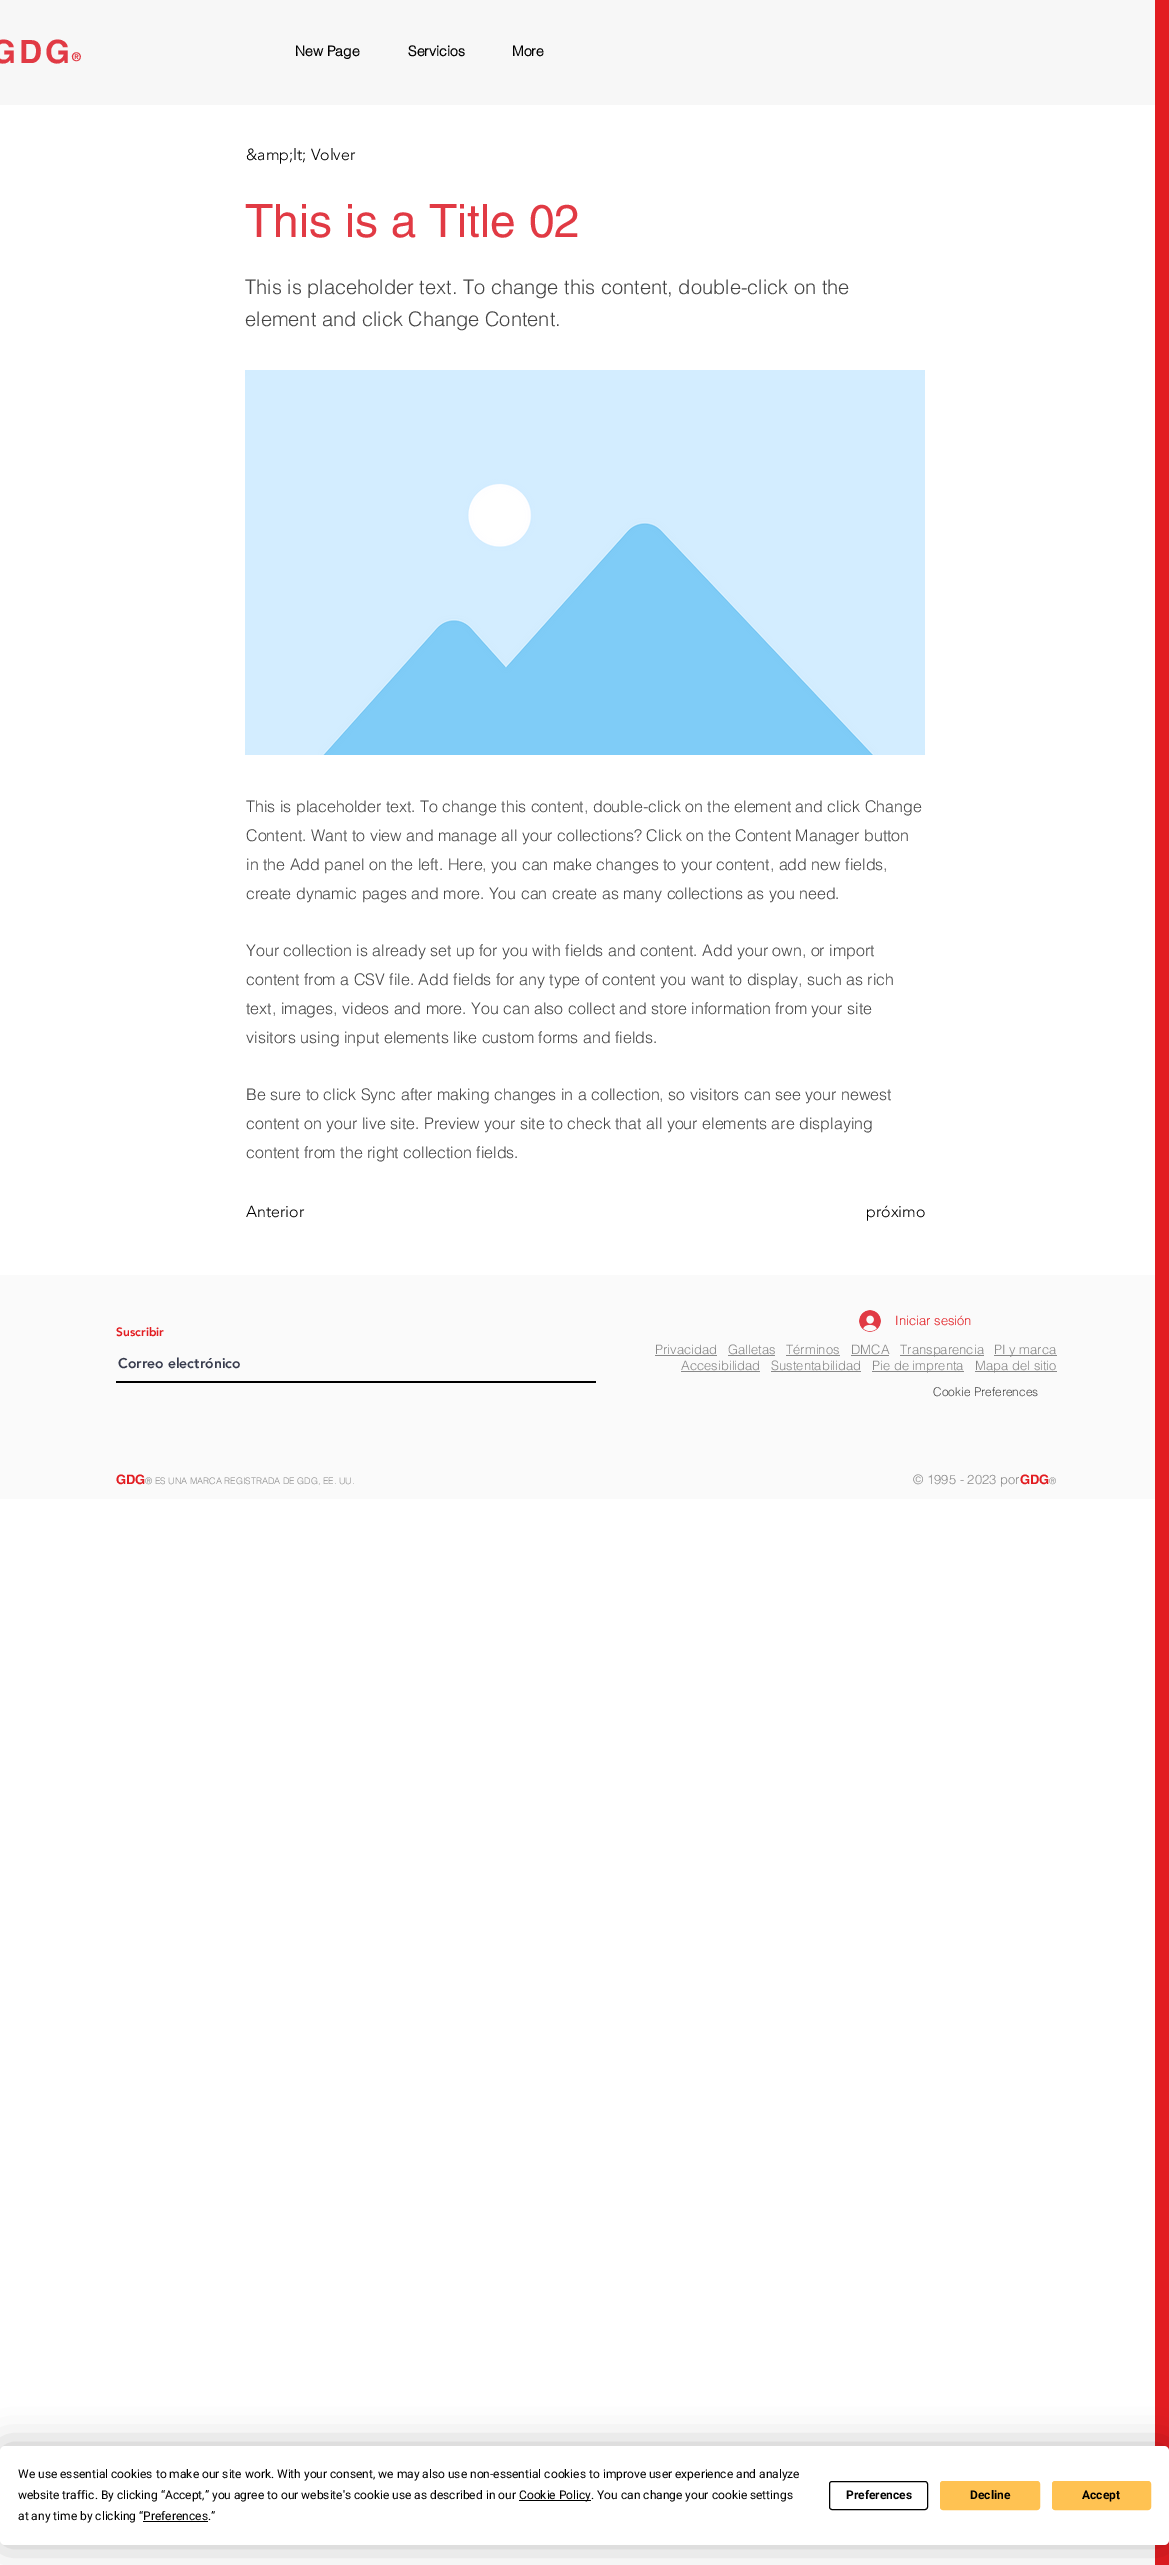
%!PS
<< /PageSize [1169 2565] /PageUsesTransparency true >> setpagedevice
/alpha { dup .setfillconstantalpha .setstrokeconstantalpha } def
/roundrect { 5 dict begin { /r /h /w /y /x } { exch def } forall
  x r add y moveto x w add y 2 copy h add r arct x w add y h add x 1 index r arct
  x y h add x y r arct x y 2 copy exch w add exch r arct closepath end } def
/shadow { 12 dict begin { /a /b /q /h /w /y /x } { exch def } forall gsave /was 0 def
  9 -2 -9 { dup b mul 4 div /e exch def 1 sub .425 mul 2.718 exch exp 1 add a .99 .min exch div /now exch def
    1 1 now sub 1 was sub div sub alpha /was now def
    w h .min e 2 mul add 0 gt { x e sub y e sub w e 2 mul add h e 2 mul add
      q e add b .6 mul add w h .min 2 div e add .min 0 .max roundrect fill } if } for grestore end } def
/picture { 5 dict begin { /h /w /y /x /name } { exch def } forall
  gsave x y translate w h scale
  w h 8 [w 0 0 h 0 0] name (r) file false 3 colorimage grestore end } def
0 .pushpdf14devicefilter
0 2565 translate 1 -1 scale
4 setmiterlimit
1 setgray
0 0 1169 2565 rectfill
0.969 setgray
0 0 1155 105 rectfill
/helvetica-Bold [32 0 0 -32 0 0] selectfont
0.882 0.227 0.267 setrgbcolor
-9 63 moveto 3 0 (GDG) ashow
/helvetica-Bold [12 0 0 -12 0 0] selectfont
72 61 moveto 1 0 (®) ashow
/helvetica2-Bold [14 0 0 -14 0 0] selectfont
0 setgray
295 56 moveto (New Page) show
408 56 moveto (Servicios) show
512 56 moveto (More) show
0.886 0.11 0.129 setrgbcolor
1155 0 14 2565 rectfill
/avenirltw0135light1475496-Light [16 0 0 -16 0 0] selectfont
0 setgray
246 160 moveto (&amp;lt; Volver) show
/helvetica-Regular [46 0 0 -46 0 0] selectfont
0.882 0.227 0.267 setrgbcolor
245 237 moveto (This is a Title 02) show
/helvetica-Light [20 0 0 -20 0 0] selectfont
0.267 setgray
245 294 moveto (This is placeholder text. To change this content, double-click on the) show
245 326 moveto (element and click Change Content.) show
(img1.rgb) 245 370 680 385 picture
/helvetica-Light [16 0 0 -16 0 0] selectfont
246 812 moveto (This is placeholder text. To change this content, double-click on the element and click Change) show
246 841 moveto (Content. Want to view and manage all your collections? Click on the Content Manager button) show
246 870 moveto (in the Add panel on the left. Here, you can make changes to your content, add new fields,) show
246 899 moveto (create dynamic pages and more. You can create as many collections as you need.) show
246 956 moveto (Your collection is already set up for you with fields and content. Add your own, or import) show
246 985 moveto (content from a CSV file. Add fields for any type of content you want to display, such as rich) show
246 1014 moveto (text, images, videos and more. You can also collect and store information from your site) show
246 1043 moveto (visitors using input elements like custom forms and fields.) show
246 1100 moveto (Be sure to click Sync after making changes in a collection, so visitors can see your newest) show
246 1129 moveto (content on your live site. Preview your site to check that all your elements are displaying) show
246 1158 moveto (content from the right collection fields.) show
/avenirltw0135light1475496-Light [16 0 0 -16 0 0] selectfont
0 setgray
246 1217 moveto (Anterior) show
866 1217 moveto (próximo) show
0.98 setgray
0 1275 1155 224 rectfill
(img2.rgb) 859 1310 22 22 picture
/helvetica-Light [13 0 0 -13 0 0] selectfont
0.886 0.11 0.129 setrgbcolor
895 1325 moveto (Iniciar sesión) show
/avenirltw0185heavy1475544-Black [12 0 0 -12 0 0] selectfont
116 1336 moveto (Suscribir) show
0 setgray
116 1381 480 2 rectfill
/avenirltw0185heavy1475544-Black [14 0 0 -14 0 0] selectfont
0.216 0.231 0.302 setrgbcolor
118 1368 moveto (Correo electrónico) show
/helvetica-Light [13 0 0 -13 0 0] selectfont
0.533 setgray
655 1354 moveto (Privacidad) show
655 1355 62 1 rectfill
728 1354 moveto (Galletas) show
728 1355 47 1 rectfill
786 1354 moveto (Términos) show
786 1355 54 1 rectfill
851 1354 moveto (DMCA) show
851 1355 38 1 rectfill
900 1355 84 1 rectfill
900 1354 moveto (Transparencia) show
994 1355 63 1 rectfill
994 1354 moveto (PI y marca) show
681 1370 moveto (Accesibilidad) show
681 1371 79 1 rectfill
771 1370 moveto (Sustentabilidad) show
771 1371 90 1 rectfill
872 1371 92 1 rectfill
872 1370 moveto (Pie de imprenta) show
975 1371 82 1 rectfill
975 1370 moveto (Mapa del sitio) show
/helvetica-Light [12 0 0 -12 0 0] selectfont
0.267 setgray
933 1396 moveto (Cookie Preferences) show
/helvetica-Bold [13 0 0 -13 0 0] selectfont
0.886 0.11 0.129 setrgbcolor
116 1484 moveto (GDG) show
/helvetica-Light [9 0 0 -9 0 0] selectfont
0.533 setgray
145 1484 moveto (® ES UNA MARCA REGISTRADA DE GDG, EE. UU.) show
/helvetica-Light [13 0 0 -13 0 0] selectfont
913 1484 moveto (© 1995 - 2023 por) show
/helvetica-Bold [13 0 0 -13 0 0] selectfont
0.886 0.11 0.129 setrgbcolor
1020 1484 moveto (GDG) show
/helvetica-Light [9 0 0 -9 0 0] selectfont
0.533 setgray
1049 1484 moveto (®) show
0 setgray
0 2446 1169 99 5 17.5 0.25 shadow
1 setgray
0 2446 1169 99 5 roundrect fill
/Roboto-Regular [12 0 0 -12 0 0] selectfont
0 setgray
18 2478 moveto (We use essential cookies to make our site work. With your consent, we may also use non-essential cookies to improve user experience and analyze) show
18 2499 moveto (website traffic. By clicking “Accept,” you agree to our website's cookie use as described in our) show
519 2500 72 1 rectfill
519 2499 moveto (Cookie Policy. You can change your cookie settings) show
18 2520 moveto (at any time by clicking “Preferences.”) show
143 2521 65 1 rectfill
829.5 2481.5 98 28 2.5 roundrect stroke
/Roboto-Bold [12 0 0 -12 0 0] selectfont
846 2499 moveto (Preferences) show
1 0.761 0.322 setrgbcolor
940.5 2481.5 99 28 2.5 roundrect gsave fill grestore
stroke
0 setgray
970 2499 moveto (Decline) show
1 0.761 0.322 setrgbcolor
1052.5 2481.5 98 28 2.5 roundrect gsave fill grestore
stroke
0 setgray
1082 2499 moveto (Accept) show
.poppdf14devicefilter showpage
